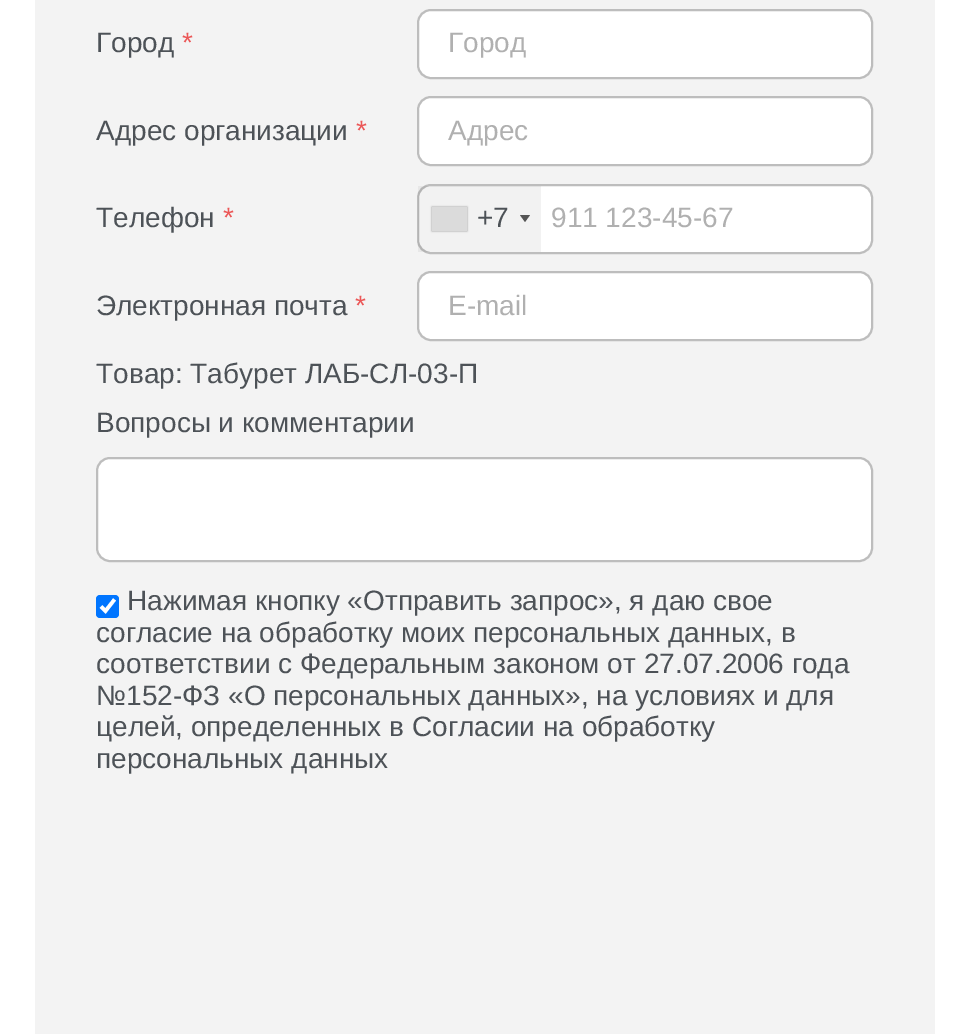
%!PS
<< /PageSize [969 1034] /PageUsesTransparency true >> setpagedevice
/alpha { dup .setfillconstantalpha .setstrokeconstantalpha } def
/roundrect { 5 dict begin { /r /h /w /y /x } { exch def } forall
  x r add y moveto x w add y 2 copy h add r arct x w add y h add x 1 index r arct
  x y h add x y r arct x y 2 copy exch w add exch r arct closepath end } def
/shadow { 12 dict begin { /a /b /q /h /w /y /x } { exch def } forall gsave /was 0 def
  9 -2 -9 { dup b mul 4 div /e exch def 1 sub .425 mul 2.718 exch exp 1 add a .99 .min exch div /now exch def
    1 1 now sub 1 was sub div sub alpha /was now def
    w h .min e 2 mul add 0 gt { x e sub y e sub w e 2 mul add h e 2 mul add
      q e add b .6 mul add w h .min 2 div e add .min 0 .max roundrect fill } if } for grestore end } def
0 .pushpdf14devicefilter
0 1034 translate 1 -1 scale
4 setmiterlimit
1 setgray
0 0 969 1034 rectfill
0.953 setgray
35 0 900 1034 rectfill
/LiberationSans-Regular [28 0 0 -28 0 0] selectfont
0.302 0.322 0.341 setrgbcolor
96 52 moveto (Город) show
0.922 0.341 0.341 setrgbcolor
182 52 moveto (*) show
1 setgray
418 10 454 68 13 roundrect gsave fill grestore
0.741 setgray
2 setlinewidth
stroke
0.69 setgray
448 52 moveto (Город) show
0.302 0.322 0.341 setrgbcolor
96 140 moveto (Адрес организации) show
0.922 0.341 0.341 setrgbcolor
356 140 moveto (*) show
1 setgray
418 97 454 68 13 roundrect gsave fill grestore
0.741 setgray
stroke
0.69 setgray
448 140 moveto (Адрес) show
0.302 0.322 0.341 setrgbcolor
96 227 moveto (Телефон) show
0.922 0.341 0.341 setrgbcolor
223 227 moveto (*) show
1 setgray
418 185 454 68 13 roundrect gsave fill grestore
0.741 setgray
stroke
0.05 alpha
0 setgray
418 186 123 66 rectfill
1 alpha
0.533 setgray
432 207 35 24 0 1 1 shadow
0.859 setgray
432 207 35 24 rectfill
0.302 0.322 0.341 setrgbcolor
477 227 moveto (+7) show
0.333 setgray
newpath 520 215 moveto 530 215 lineto 525 222 lineto closepath fill
0.69 setgray
551 227 moveto (911 123-45-67) show
0.302 0.322 0.341 setrgbcolor
96 315 moveto (Электронная почта) show
0.922 0.341 0.341 setrgbcolor
355 315 moveto (*) show
1 setgray
418 272 454 68 13 roundrect gsave fill grestore
0.741 setgray
stroke
0.69 setgray
448 315 moveto (E-mail) show
0.302 0.322 0.341 setrgbcolor
96 383 moveto (Товар: Табурет ЛАБ-СЛ-03-П) show
96 432 moveto (Вопросы и комментарии) show
1 setgray
97 458 775 103 13 roundrect gsave fill grestore
0.741 setgray
stroke
0 0.459 1 setrgbcolor
96 595 23 23 4 roundrect fill
1 setgray
3.6 setlinewidth
newpath 101 606.5 moveto 105.5 611 lineto 114.5 599.5 lineto stroke
0.302 0.322 0.341 setrgbcolor
127 610 moveto (Нажимая кнопку «Отправить запрос», я даю свое) show
96 642 moveto (согласие на обработку моих персональных данных, в) show
96 673 moveto (соответствии с Федеральным законом от 27.07.2006 года) show
96 705 moveto (№152-ФЗ «О персональных данных», на условиях и для) show
96 736 moveto (целей, определенных в Согласии на обработку) show
96 768 moveto (персональных данных) show
.poppdf14devicefilter showpage
